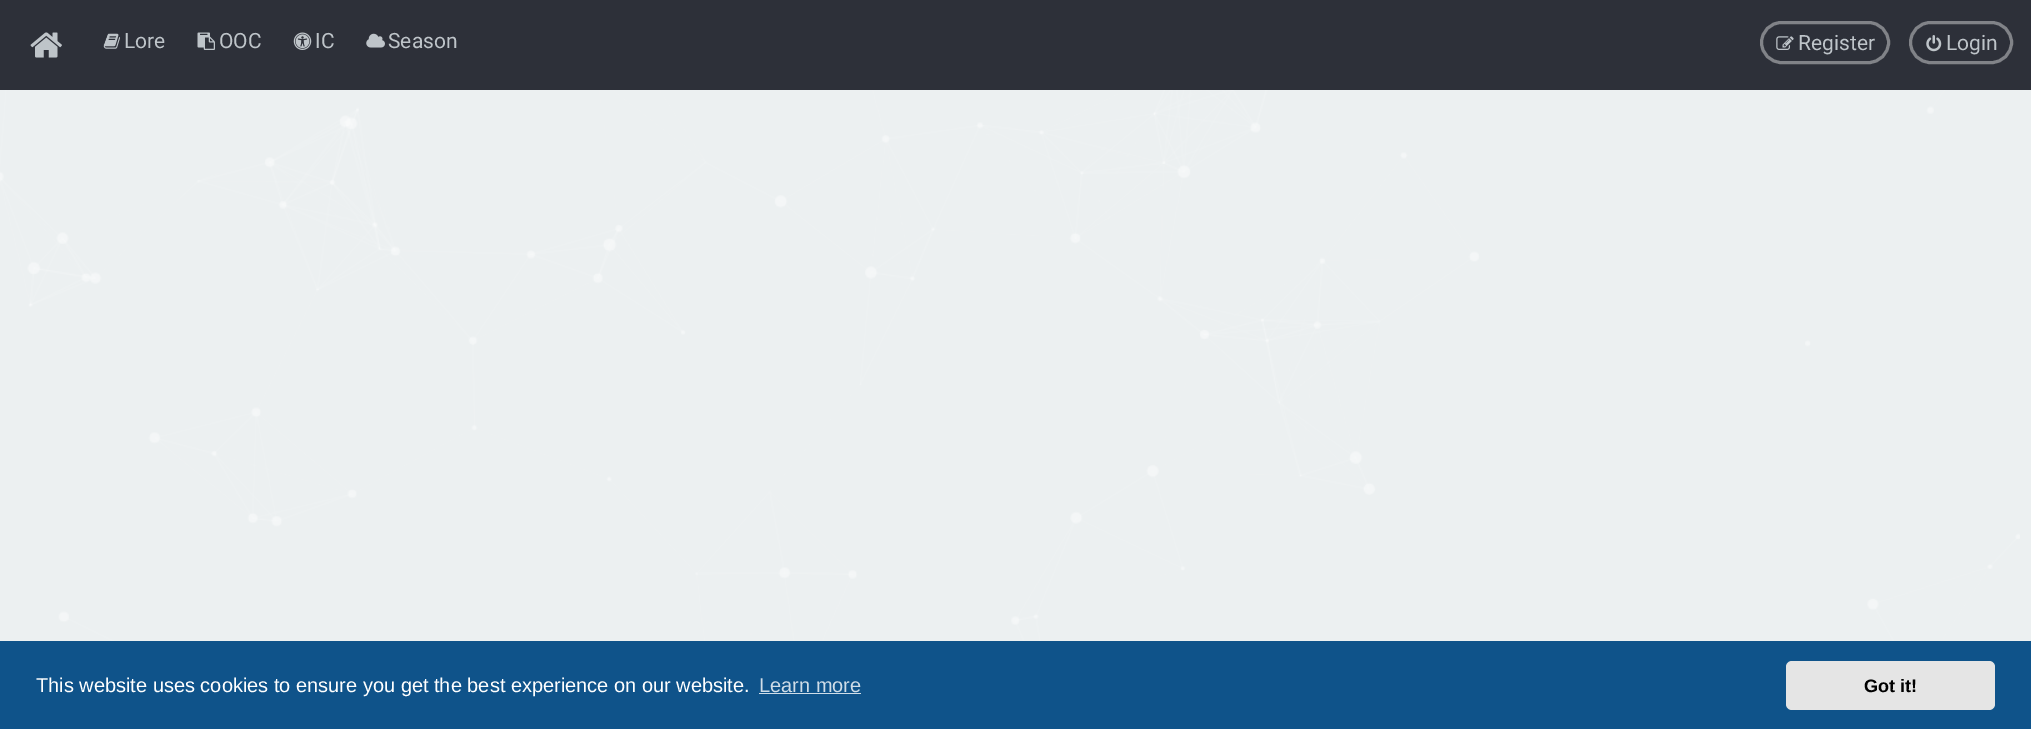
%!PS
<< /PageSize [2031 729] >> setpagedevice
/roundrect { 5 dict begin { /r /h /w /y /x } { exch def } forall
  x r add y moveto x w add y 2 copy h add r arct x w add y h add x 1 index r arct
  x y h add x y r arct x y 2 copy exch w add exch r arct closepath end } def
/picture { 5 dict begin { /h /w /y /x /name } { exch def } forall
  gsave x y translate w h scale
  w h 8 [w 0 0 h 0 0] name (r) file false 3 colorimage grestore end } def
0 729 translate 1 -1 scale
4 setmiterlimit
0.925 0.941 0.945 setrgbcolor
0 0 2031 729 rectfill
0.176 0.188 0.224 setrgbcolor
0 0 2031 90 rectfill
(img1.rgb) 30 32 32 26 picture
(img2.rgb) 103 33 17 16 picture
/Roboto-Regular [21 0 0 -21 0 0] selectfont
0.745 0.769 0.788 setrgbcolor
124 48 moveto (Lore) show
(img3.rgb) 197 32 18 18 picture
219 48 moveto (OOC) show
(img4.rgb) 293 32 19 18 picture
315 48 moveto (IC) show
(img5.rgb) 366 33 19 15 picture
388 48 moveto (Season) show
0.506 0.514 0.533 setrgbcolor
3 setlinewidth
1761.5 22.5 127 40 20 roundrect stroke
(img6.rgb) 1776 36 18 14 picture
0.745 0.769 0.788 setrgbcolor
1798 50 moveto (Register) show
0.506 0.514 0.533 setrgbcolor
1910.5 22.5 101 40 20 roundrect stroke
(img7.rgb) 1926 35 16 17 picture
0.745 0.769 0.788 setrgbcolor
1946 50 moveto (Login) show
(img8.rgb) 0 90 2020 551 picture
0.059 0.325 0.541 setrgbcolor
0 641 2031 88 rectfill
/LiberationSans-Regular [20 0 0 -20 0 0] selectfont
1 setgray
36 692 moveto (This website uses cookies to ensure you get the best experience on our website.) show
0.812 0.867 0.91 setrgbcolor
759 692 moveto (Learn more) show
759 693 102 1 rectfill
0.898 setgray
1786 661 209 49 6 roundrect fill
/LiberationSans-Bold [18 0 0 -18 0 0] selectfont
0 setgray
1864 692 moveto (Got it!) show
showpage
